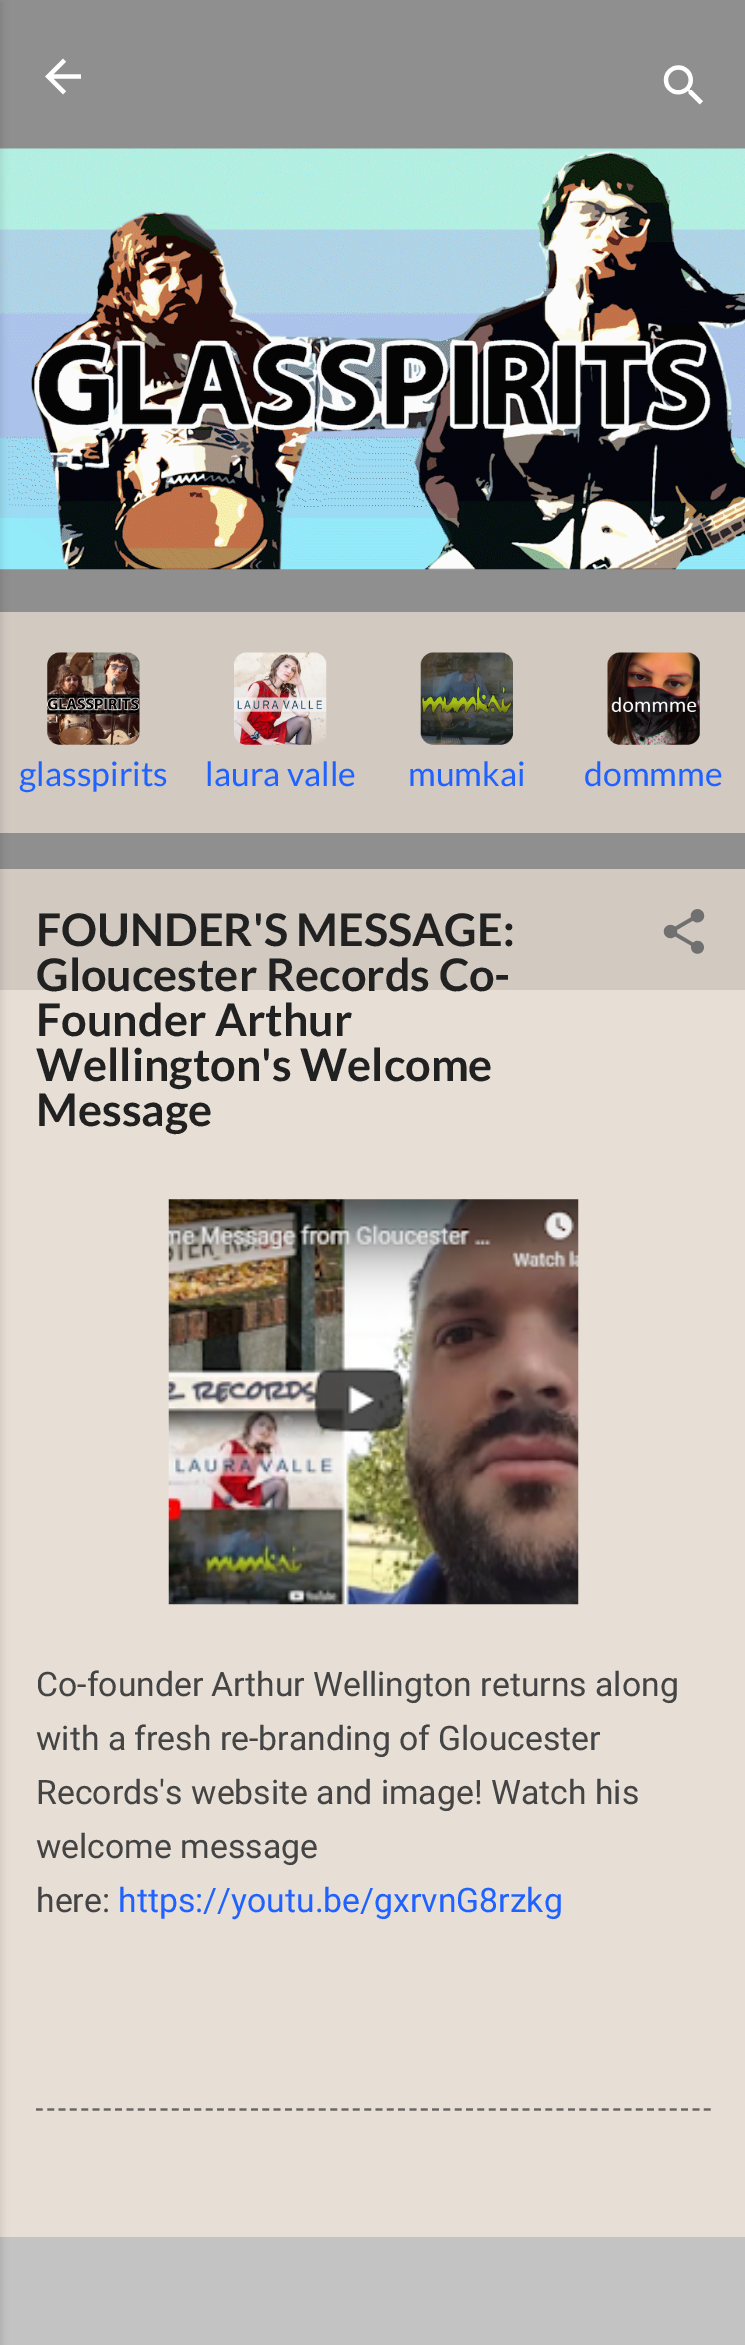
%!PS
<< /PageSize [745 2345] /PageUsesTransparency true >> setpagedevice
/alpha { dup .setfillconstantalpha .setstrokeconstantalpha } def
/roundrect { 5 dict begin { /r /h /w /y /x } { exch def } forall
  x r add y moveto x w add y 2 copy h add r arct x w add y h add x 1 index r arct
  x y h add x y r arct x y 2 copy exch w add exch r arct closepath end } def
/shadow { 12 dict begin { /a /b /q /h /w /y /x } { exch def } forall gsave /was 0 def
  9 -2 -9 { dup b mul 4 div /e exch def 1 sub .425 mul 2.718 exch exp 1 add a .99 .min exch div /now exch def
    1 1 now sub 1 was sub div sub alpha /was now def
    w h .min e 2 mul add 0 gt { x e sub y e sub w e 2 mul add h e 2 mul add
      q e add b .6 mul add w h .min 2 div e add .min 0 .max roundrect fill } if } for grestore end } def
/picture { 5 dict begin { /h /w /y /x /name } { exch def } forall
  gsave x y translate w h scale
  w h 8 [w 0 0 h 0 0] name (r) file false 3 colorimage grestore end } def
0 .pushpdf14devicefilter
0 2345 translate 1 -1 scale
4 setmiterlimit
0.765 setgray
0 0 745 2345 rectfill
0.906 0.875 0.839 setrgbcolor
0 990 745 1247 rectfill
0.561 setgray
0 0 745 869 rectfill
0.824 0.792 0.757 setrgbcolor
0 869 745 121 rectfill
(img3.rgb) 0 148 745 422 picture
0 612 745 221 rectfill
0 setgray
-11 2 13 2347 0 3.5 0.1 shadow
(img1.rgb) 45 58 36 37 picture
(img2.rgb) 663 65 40 40 picture
(img4.rgb) 47 652 93 93 picture
(img5.rgb) 234 652 93 93 picture
(img6.rgb) 420 652 93 93 picture
(img7.rgb) 607 652 93 93 picture
/Lato-Regular [33.75 0 0 -33.75 0 0] selectfont
0.125 0.384 1 setrgbcolor
19 786 moveto (glasspirits) show
205 786 moveto (laura valle) show
408 786 moveto (mumkai) show
584 786 moveto (dommme) show
/Lato-Bold [45 0 0 -45 0 0] selectfont
0.129 setgray
36 946 moveto (FOUNDER'S MESSAGE:) show
36 991 moveto (Gloucester Records Co-) show
36 1036 moveto (Founder Arthur) show
36 1081 moveto (Wellington's Welcome) show
36 1126 moveto (Message) show
(img8.rgb) 663 909 42 45 picture
(img9.rgb) 168 1199 411 406 picture
/Roboto-Regular [33.75 0 0 -33.75 0 0] selectfont
0.267 setgray
36 1696 moveto (Co-founder Arthur Wellington returns along) show
36 1750 moveto (with a fresh re-branding of Gloucester) show
36 1804 moveto (Records's website and image! Watch his) show
36 1858 moveto (welcome message) show
36 1912 moveto (here:) show
0.125 0.384 1 setrgbcolor
118 1912 moveto (https://youtu.be/gxrvnG8rzkg) show
0.416 0.4 0.388 setrgbcolor
2.2 setlinewidth
[6.75 4.57] 0 setdash
newpath 36 2109.5 moveto 711 2109.5 lineto stroke
.poppdf14devicefilter showpage
